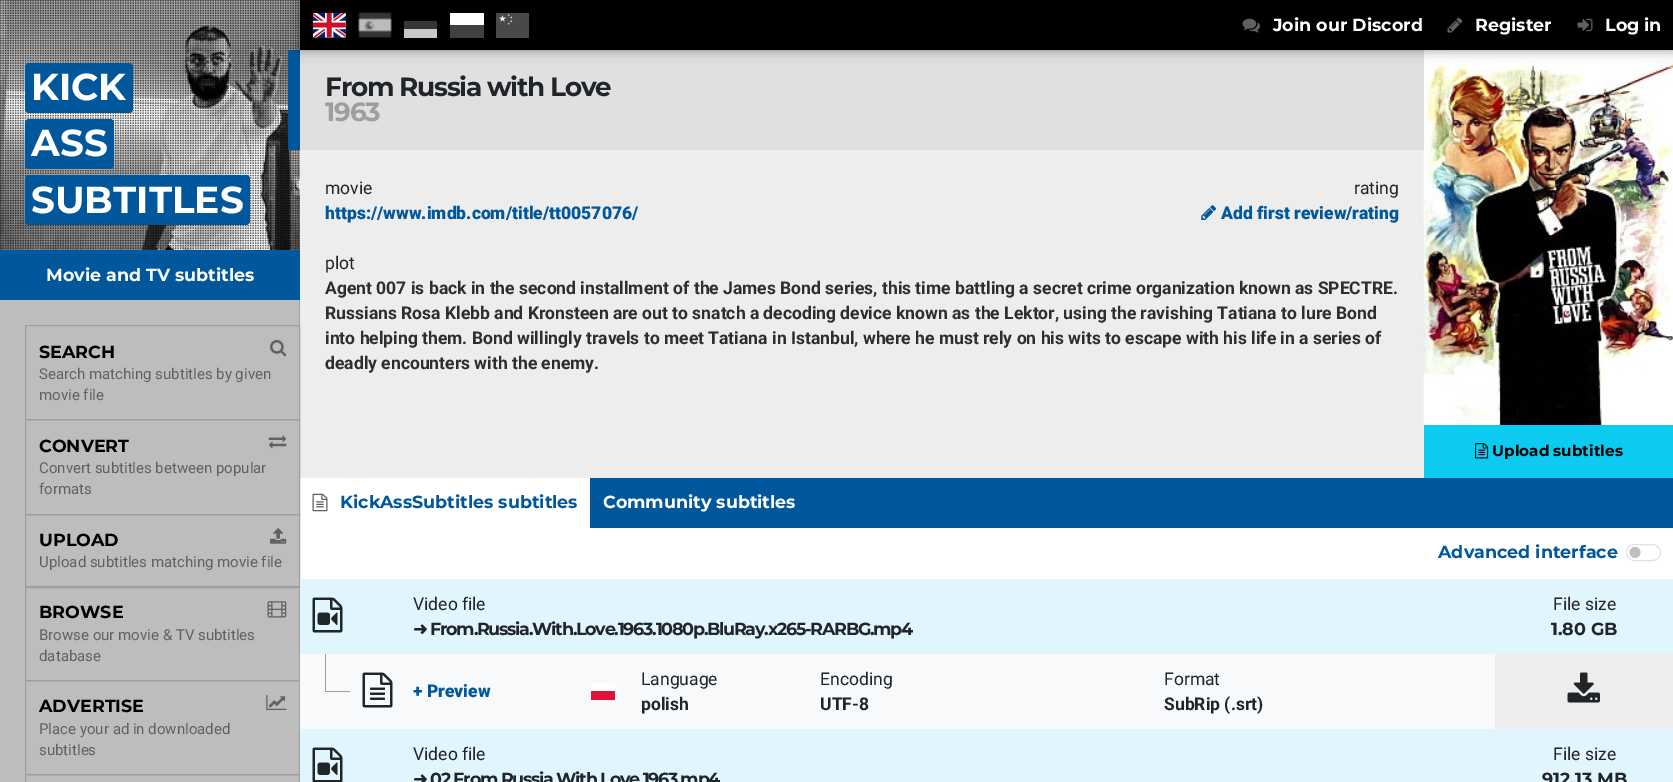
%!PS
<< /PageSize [1673 782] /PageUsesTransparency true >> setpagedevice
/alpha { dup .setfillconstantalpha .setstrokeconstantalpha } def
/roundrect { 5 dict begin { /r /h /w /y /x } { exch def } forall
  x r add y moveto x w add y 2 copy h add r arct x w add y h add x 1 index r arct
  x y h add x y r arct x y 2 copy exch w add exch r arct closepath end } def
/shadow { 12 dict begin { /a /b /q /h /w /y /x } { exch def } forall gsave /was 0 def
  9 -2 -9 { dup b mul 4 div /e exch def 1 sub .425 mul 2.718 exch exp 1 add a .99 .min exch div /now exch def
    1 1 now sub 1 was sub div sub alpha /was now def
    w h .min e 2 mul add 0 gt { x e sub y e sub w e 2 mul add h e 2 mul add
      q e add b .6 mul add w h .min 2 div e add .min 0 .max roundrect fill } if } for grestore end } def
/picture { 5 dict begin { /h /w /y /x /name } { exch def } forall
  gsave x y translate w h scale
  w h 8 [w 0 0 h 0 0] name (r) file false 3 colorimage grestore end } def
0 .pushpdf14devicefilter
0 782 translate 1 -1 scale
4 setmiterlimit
1 setgray
0 0 1673 782 rectfill
(img7.rgb) 0 0 300 250 picture
(img8.rgb) 0 0 300 250 picture
0.929 setgray
300 150 1124 328 rectfill
(img15.rgb) 1423 50 250 375 picture
0.878 setgray
300 50 1124 100 rectfill
0.004 0.341 0.608 setrgbcolor
288 50 12 100 rectfill
0 setgray
300 0 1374 50 0 6 0.4 shadow
300 0 1373 50 rectfill
(img1.rgb) 313 13 33 25 picture
(img2.rgb) 358 12 34 26 picture
0.784 setgray
404 29 33 9 rectfill
0.212 setgray
404 21 33 8 rectfill
1 setgray
450 13 34 12 rectfill
0.255 setgray
450 25 34 13 rectfill
(img3.rgb) 496 13 33 25 picture
(img4.rgb) 1242 18 18 15 picture
/Montserrat-Bold [17.5 0 0 -17.5 0 0] selectfont
1 setgray
1273 31 moveto (Join our Discord) show
(img5.rgb) 1447 17 16 16 picture
1475 31 moveto (Register) show
(img6.rgb) 1577 18 16 14 picture
1605 31 moveto (Log in) show
0.741 setgray
0 300 299 482 rectfill
0.62 setgray
299 300 1 25 rectfill
0.004 0.341 0.608 setrgbcolor
25 63 108 50 4 roundrect fill
/Montserrat-Bold [37.5 0 0 -37.5 0 0] selectfont
1 setgray
31 100 moveto (KICK) show
0.004 0.341 0.608 setrgbcolor
25 119 89 50 4 roundrect fill
1 setgray
31 156 moveto (ASS) show
0.004 0.341 0.608 setrgbcolor
25 175 225 50 4 roundrect fill
1 setgray
31 213 moveto (SUBTITLES) show
0.004 0.341 0.608 setrgbcolor
0 250 300 50 rectfill
/Montserrat-Bold [17.5 0 0 -17.5 0 0] selectfont
1 setgray
46 281 moveto (Movie and TV subtitles) show
0.62 setgray
25.5 325.5 274 94 rectstroke
0 setgray
39 358 moveto (SEARCH) show
(img9.rgb) 270 340 17 17 picture
/Roboto-Regular [15 0 0 -15 0 0] selectfont
0.38 setgray
39 379 moveto (Search matching subtitles by given) show
39 400 moveto (movie file) show
0.62 setgray
25.5 419.5 274 95 rectstroke
/Montserrat-Bold [17.5 0 0 -17.5 0 0] selectfont
0 setgray
39 452 moveto (CONVERT) show
(img10.rgb) 268 435 19 14 picture
/Roboto-Regular [15 0 0 -15 0 0] selectfont
0.38 setgray
39 473 moveto (Convert subtitles between popular) show
39 494 moveto (formats) show
0.62 setgray
25.5 514.5 274 73 rectstroke
/Montserrat-Bold [17.5 0 0 -17.5 0 0] selectfont
0 setgray
39 546 moveto (UPLOAD) show
(img11.rgb) 270 528 17 16 picture
/Roboto-Regular [15 0 0 -15 0 0] selectfont
0.38 setgray
39 567 moveto (Upload subtitles matching movie file) show
0.62 setgray
25.5 586.5 274 94 rectstroke
/Montserrat-Bold [17.5 0 0 -17.5 0 0] selectfont
0 setgray
39 618 moveto (BROWSE) show
(img12.rgb) 267 601 20 17 picture
/Roboto-Regular [15 0 0 -15 0 0] selectfont
0.38 setgray
39 640 moveto (Browse our movie & TV subtitles) show
39 661 moveto (database) show
0.62 setgray
25.5 680.5 274 94 rectstroke
/Montserrat-Bold [17.5 0 0 -17.5 0 0] selectfont
0 setgray
39 712 moveto (ADVERTISE) show
(img13.rgb) 266 695 21 15 picture
/Roboto-Regular [15 0 0 -15 0 0] selectfont
0.38 setgray
39 734 moveto (Place your ad in downloaded) show
39 755 moveto (subtitles) show
0.62 setgray
25.5 774.5 274 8 rectstroke
/Montserrat-Bold [26.25 0 0 -26.25 0 0] selectfont
0.129 0.145 0.161 setrgbcolor
325 96 moveto -1.25 0 (From Russia with Love) ashow
0.62 setgray
325 121 moveto -1.25 0 (1963) ashow
/Roboto-Regular [17.5 0 0 -17.5 0 0] selectfont
0.129 0.145 0.161 setrgbcolor
325 194 moveto (movie) show
/Roboto-Black [17.5 0 0 -17.5 0 0] selectfont
0.004 0.341 0.608 setrgbcolor
325 219 moveto (https://www.imdb.com/title/tt0057076/) show
/Roboto-Regular [17.5 0 0 -17.5 0 0] selectfont
0.129 0.145 0.161 setrgbcolor
1354 194 moveto (rating) show
(img14.rgb) 1201 205 15 15 picture
/Roboto-Black [17.5 0 0 -17.5 0 0] selectfont
0.004 0.341 0.608 setrgbcolor
1221 219 moveto (Add first review/rating) show
/Roboto-Regular [17.5 0 0 -17.5 0 0] selectfont
0.129 0.145 0.161 setrgbcolor
325 269 moveto (plot) show
/Roboto-Bold [17.5 0 0 -17.5 0 0] selectfont
0.169 0.184 0.196 setrgbcolor
325 294 moveto (Agent 007 is back in the second installment of the James Bond series, this time battling a secret crime organization known as SPECTRE.) show
325 319 moveto (Russians Rosa Klebb and Kronsteen are out to snatch a decoding device known as the Lektor, using the ravishing Tatiana to lure Bond) show
325 344 moveto (into helping them. Bond willingly travels to meet Tatiana in Istanbul, where he must rely on his wits to escape with his life in a series of) show
325 369 moveto (deadly encounters with the enemy.) show
0.051 0.792 0.941 setrgbcolor
1424 425 249 53 rectfill
(img16.rgb) 1475 443 14 16 picture
/Montserrat-Bold [15.25 0 0 -15.25 0 0] selectfont
0 setgray
1492 456 moveto (Upload subtitles) show
0.004 0.341 0.608 setrgbcolor
590 478 1083 50 rectfill
(img17.rgb) 312 493 16 19 picture
/Montserrat-Bold [17.5 0 0 -17.5 0 0] selectfont
340 508 moveto (KickAssSubtitles subtitles) show
1 setgray
603 508 moveto (Community subtitles) show
0.004 0.341 0.608 setrgbcolor
1438 558 moveto (Advanced interface) show
0.749 setgray
newpath 1635 552.5 5.5 0 360 arc closepath fill
0.871 0.886 0.902 setrgbcolor
1626.5 544.5 34 16 8 roundrect stroke
0.973 0.976 0.98 setrgbcolor
300 654 1195 75 rectfill
0.882 0.961 0.996 setrgbcolor
300 579 1373 75 rectfill
(img18.rgb) 312 597 31 36 picture
/Roboto-Regular [17.5 0 0 -17.5 0 0] selectfont
0.129 0.145 0.161 setrgbcolor
413 610 moveto (Video file) show
/DejaVuSans-Bold [17.5 0 0 -17.5 0 0] selectfont
413 635 moveto -1.25 0 (➜) ashow
/Montserrat-Bold [17.5 0 0 -17.5 0 0] selectfont
430 635 moveto -1.25 0 (From.Russia.With.Love.1963.1080p.BluRay.x265-RARBG.mp4) ashow
/Roboto-Regular [17.5 0 0 -17.5 0 0] selectfont
1553 610 moveto (File size) show
/Montserrat-Bold [17.5 0 0 -17.5 0 0] selectfont
1551 635 moveto (1.80 GB) show
0.62 setgray
325 654 1 37 rectfill
(img19.rgb) 362 672 31 36 picture
325 691 25 1 rectfill
/Roboto-Black [17.5 0 0 -17.5 0 0] selectfont
0.004 0.341 0.608 setrgbcolor
413 697 moveto (+ Preview) show
1 setgray
591 683 24 8 rectfill
0.863 0.078 0.235 setrgbcolor
591 691 24 9 rectfill
/Roboto-Regular [17.5 0 0 -17.5 0 0] selectfont
0.129 0.145 0.161 setrgbcolor
641 685 moveto (Language) show
/Roboto-Bold [17.5 0 0 -17.5 0 0] selectfont
641 710 moveto (polish) show
/Roboto-Regular [17.5 0 0 -17.5 0 0] selectfont
820 685 moveto (Encoding) show
/Roboto-Bold [17.5 0 0 -17.5 0 0] selectfont
820 710 moveto (UTF-8) show
/Roboto-Regular [17.5 0 0 -17.5 0 0] selectfont
1164 685 moveto (Format) show
/Roboto-Bold [17.5 0 0 -17.5 0 0] selectfont
1164 710 moveto (SubRip \(.srt\)) show
0.929 setgray
1495 654 178 75 rectfill
(img20.rgb) 1567 672 33 31 picture
0.882 0.961 0.996 setrgbcolor
300 729 1373 53 rectfill
(img21.rgb) 312 747 31 35 picture
/Roboto-Regular [17.5 0 0 -17.5 0 0] selectfont
0.129 0.145 0.161 setrgbcolor
413 760 moveto (Video file) show
/DejaVuSans-Bold [17.5 0 0 -17.5 0 0] selectfont
413 785 moveto -1.25 0 (➜) ashow
/Montserrat-Bold [17.5 0 0 -17.5 0 0] selectfont
430 785 moveto -1.25 0 (02 From Russia With Love 1963.mp4) ashow
/Roboto-Regular [17.5 0 0 -17.5 0 0] selectfont
1553 760 moveto (File size) show
/Montserrat-Bold [17.5 0 0 -17.5 0 0] selectfont
1542 785 moveto (912.13 MB) show
.poppdf14devicefilter showpage
